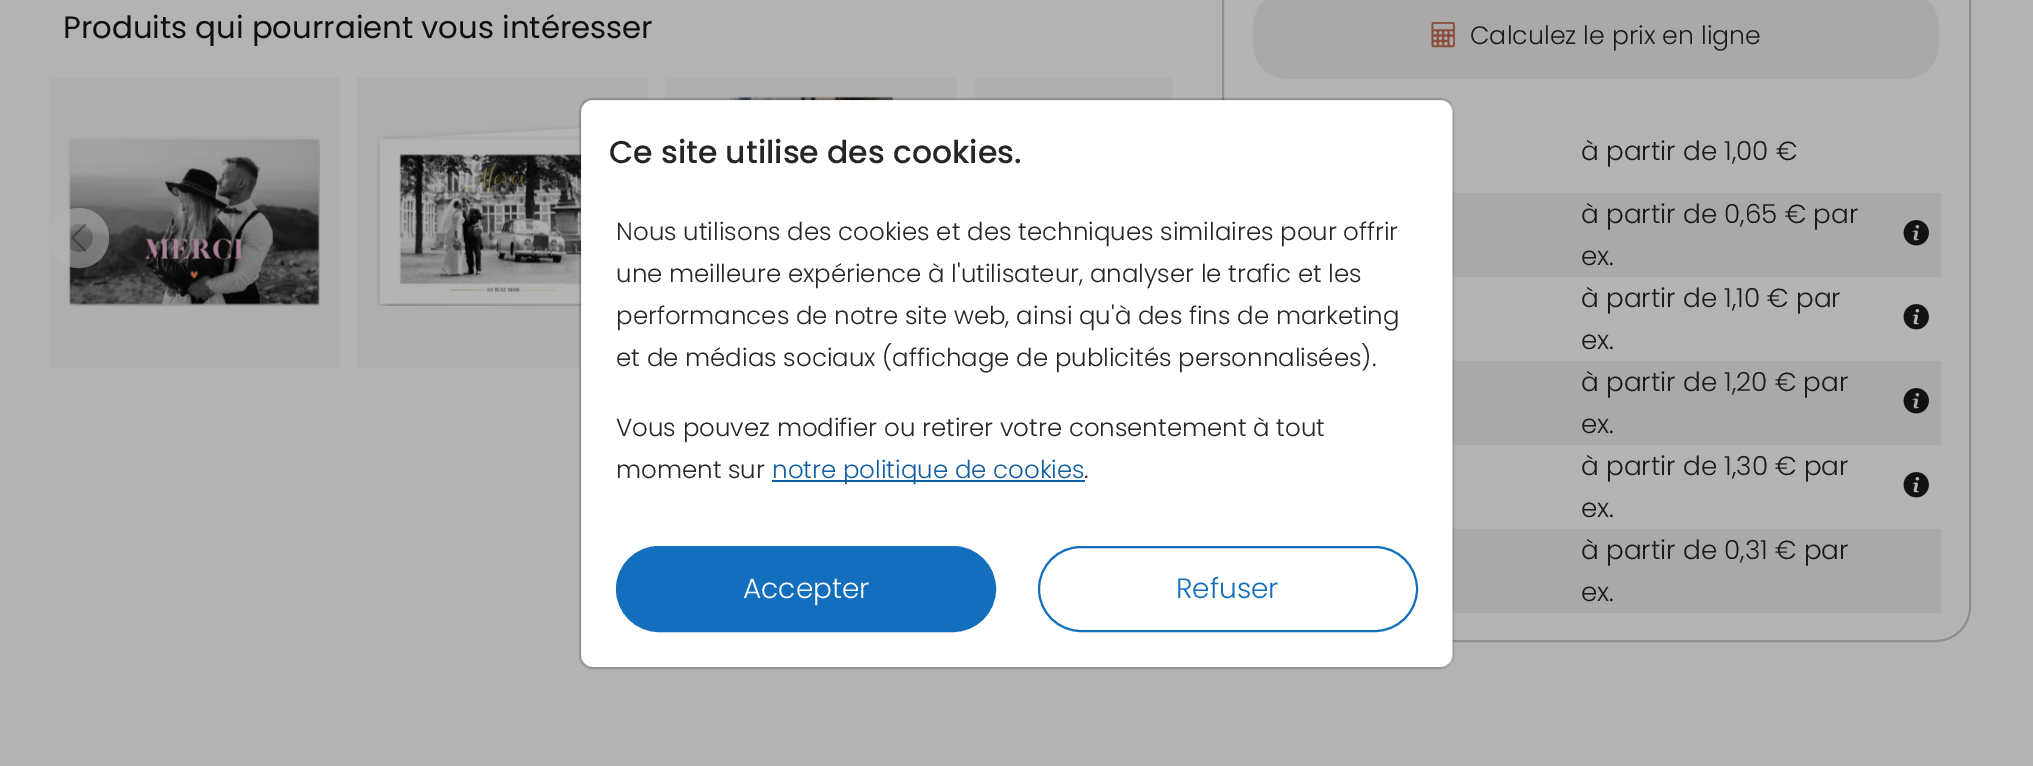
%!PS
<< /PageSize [2033 766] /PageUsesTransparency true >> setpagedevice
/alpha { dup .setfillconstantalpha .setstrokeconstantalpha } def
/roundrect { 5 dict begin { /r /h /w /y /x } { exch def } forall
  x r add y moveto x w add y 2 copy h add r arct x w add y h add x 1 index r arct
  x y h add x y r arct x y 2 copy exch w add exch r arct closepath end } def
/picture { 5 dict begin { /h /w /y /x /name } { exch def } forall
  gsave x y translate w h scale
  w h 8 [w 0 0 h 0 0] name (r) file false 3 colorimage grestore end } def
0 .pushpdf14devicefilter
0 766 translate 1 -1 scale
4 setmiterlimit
0.702 setgray
0 0 2033 766 rectfill
/Poppins-Regular [30.75 0 0 -30.75 0 0] selectfont
0.059 setgray
63 38 moveto (Produits qui pourraient vous intéresser) show
0.682 0.682 0.686 setrgbcolor
49 77 291 291 rectfill
(img1.rgb) 68 136 252 170 picture
357 77 291 291 rectfill
(img2.rgb) 378 125 203 181 picture
(img3.rgb) 377 136 204 170 picture
665 77 292 9 rectfill
665 77 292 291 9 roundrect fill
(img4.rgb) 729 96 167 4 picture
975 77 9 9 rectfill
newpath 984 77 moveto 1173 77 lineto 1173 368 lineto 984 368 lineto 979 368 975 364 975 359 curveto 975 86 lineto 975 81 979 77 984 77 curveto closepath fill
0.35 alpha
0.702 setgray
newpath 79 238 30 0 360 arc closepath fill
16 setlinewidth
newpath 79 238 22 0 360 arc closepath stroke
1 alpha
(img5.rgb) 71 224 16 28 picture
0.561 setgray
2 setlinewidth
1223 -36 747 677 34 roundrect stroke
0.663 setgray
1252 -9 688 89 34 roundrect gsave fill grestore
0.702 setgray
stroke
(img6.rgb) 1431 22 24 26 picture
/Poppins-Light [25.25 0 0 -25.25 0 0] selectfont
0.106 setgray
1470 44 moveto (Calculez le prix en ligne) show
/Poppins-Light [26.25 0 0 -26.25 0 0] selectfont
1581 160 moveto (à partir de 1,00 €) show
0.663 setgray
1453 193 488 84 rectfill
0.106 setgray
1581 223 moveto (à partir de 0,65 € par) show
1581 265 moveto (ex.) show
(img7.rgb) 1903 220 26 26 picture
1581 307 moveto (à partir de 1,10 € par) show
1581 349 moveto (ex.) show
(img8.rgb) 1903 304 26 26 picture
0.663 setgray
1453 361 488 84 rectfill
0.106 setgray
1581 391 moveto (à partir de 1,20 € par) show
1581 433 moveto (ex.) show
(img7.rgb) 1903 388 26 26 picture
1581 475 moveto (à partir de 1,30 € par) show
1581 517 moveto (ex.) show
(img8.rgb) 1903 472 26 26 picture
0.663 setgray
1453 529 488 84 rectfill
0.106 setgray
1581 559 moveto (à partir de 0,31 € par) show
1581 601 moveto (ex.) show
1 setgray
581 100 872 567 12 roundrect fill
0.18 alpha
0 setgray
580 99 873 569 13 roundrect stroke
/Poppins-Medium [31.5 0 0 -31.5 0 0] selectfont
1 alpha
0.149 setgray
609 163 moveto (Ce site utilise des cookies.) show
/Poppins-Light [24.5 0 0 -24.5 0 0] selectfont
616 240 moveto (Nous utilisons des cookies et des techniques similaires pour offrir) show
616 282 moveto (une meilleure expérience à l'utilisateur, analyser le trafic et les) show
616 324 moveto (performances de notre site web, ainsi qu'à des fins de marketing) show
616 366 moveto (et de médias sociaux \(affichage de publicités personnalisées\).) show
616 436 moveto (Vous pouvez modifier ou retirer votre consentement à tout) show
616 478 moveto (moment sur) show
0.067 0.369 0.635 setrgbcolor
772 480 313 2 rectfill
772 478 moveto (notre politique de cookies) show
0.149 setgray
1084 478 moveto (.) show
0.078 0.431 0.745 setrgbcolor
617 547 378 84 42 roundrect gsave fill grestore
stroke
/Poppins-Light [28 0 0 -28 0 0] selectfont
1 setgray
743 598 moveto (Accepter) show
0.078 0.431 0.745 setrgbcolor
1039 547 378 84 42 roundrect stroke
1176 598 moveto (Refuser) show
.poppdf14devicefilter showpage
